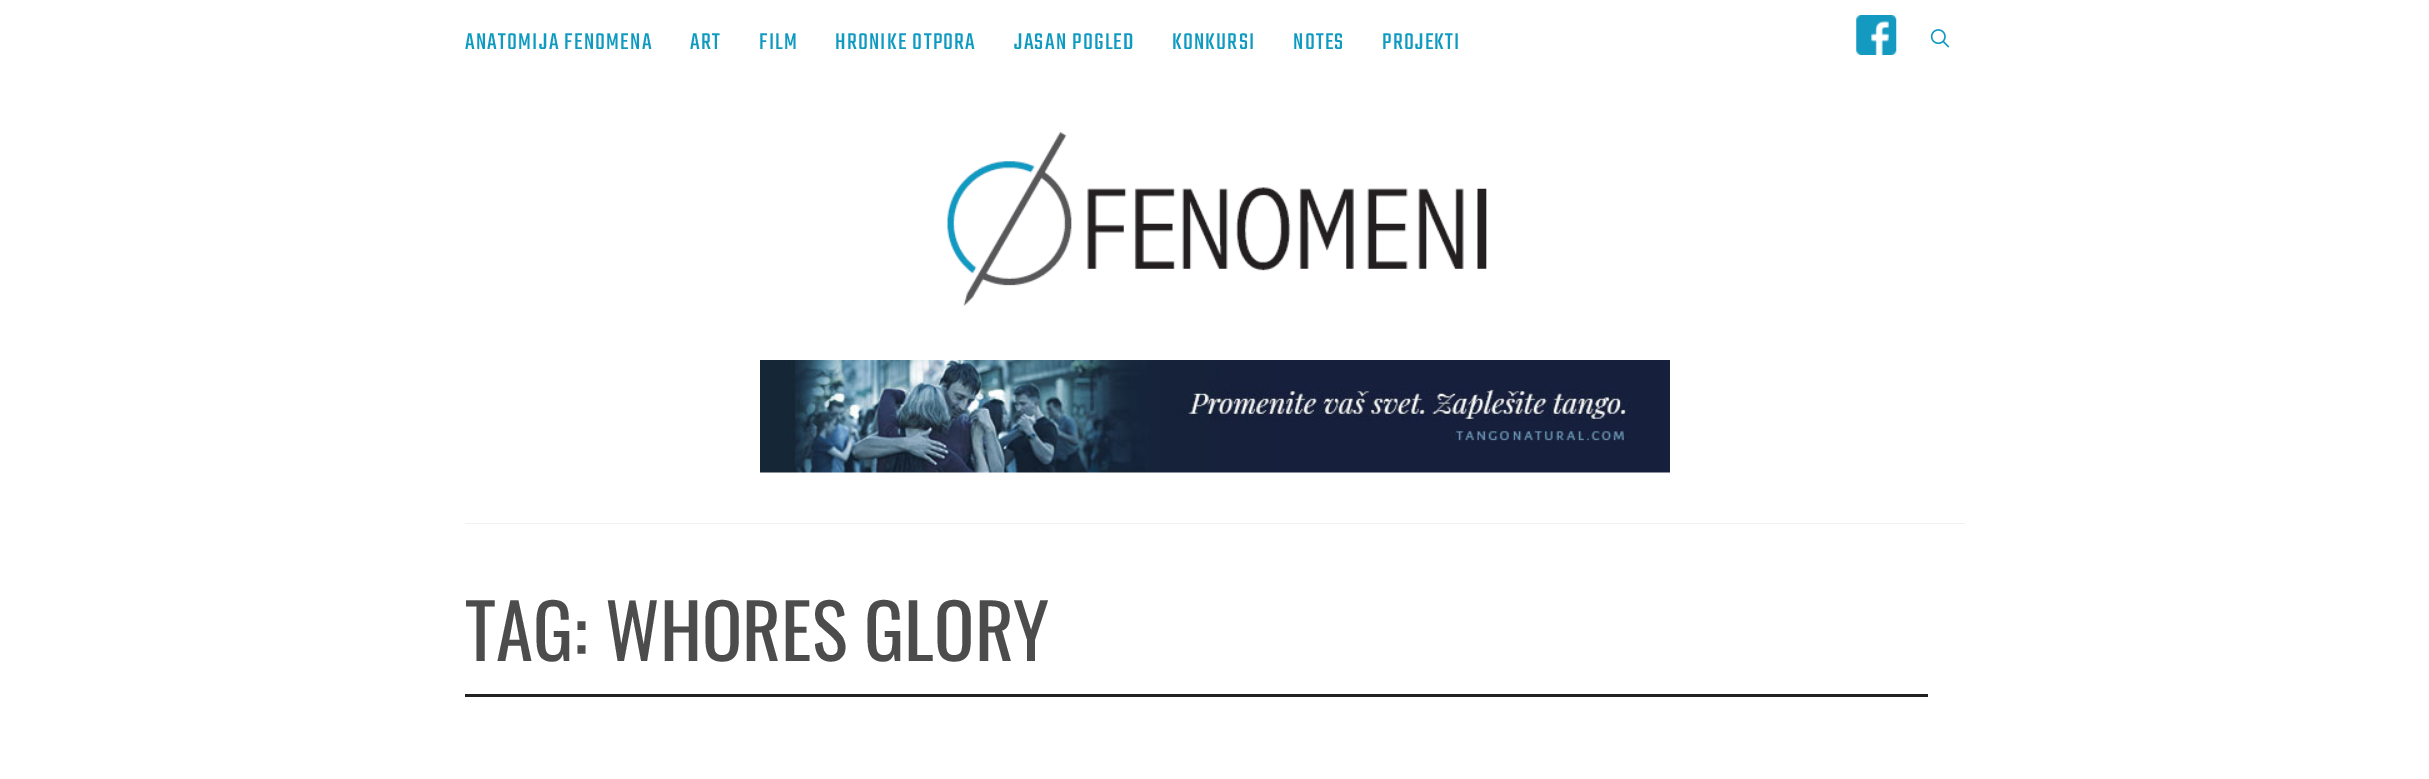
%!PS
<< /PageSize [2429 779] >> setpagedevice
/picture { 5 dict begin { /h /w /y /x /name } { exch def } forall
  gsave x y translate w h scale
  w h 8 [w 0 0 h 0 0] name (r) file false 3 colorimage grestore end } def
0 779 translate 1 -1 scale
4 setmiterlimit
1 setgray
0 0 2429 779 rectfill
/Teko-Regular [25 0 0 -25 0 0] selectfont
0.055 0.604 0.757 setrgbcolor
465 49 moveto 1.25 0 (ANATOMIJA FENOMENA) ashow
690 49 moveto 1.25 0 (ART) ashow
759 49 moveto 1.25 0 (FILM) ashow
835 49 moveto 1.25 0 (HRONIKE OTPORA) ashow
1014 49 moveto 1.25 0 (JASAN POGLED) ashow
1172 49 moveto 1.25 0 (KONKURSI) ashow
1293 49 moveto 1.25 0 (NOTES) ashow
1382 49 moveto 1.25 0 (PROJEKTI) ashow
(img1.rgb) 1856 15 41 40 picture
(img2.rgb) 1930 29 20 19 picture
(img3.rgb) 947 131 540 176 picture
(img4.rgb) 760 360 910 113 picture
0.941 setgray
465 523 1500 1 rectfill
0.133 setgray
465 694 1463 3 rectfill
/Oswald-Regular [75 0 0 -75 0 0] selectfont
0.298 setgray
465 661 moveto (TAG: WHORES GLORY) show
showpage
